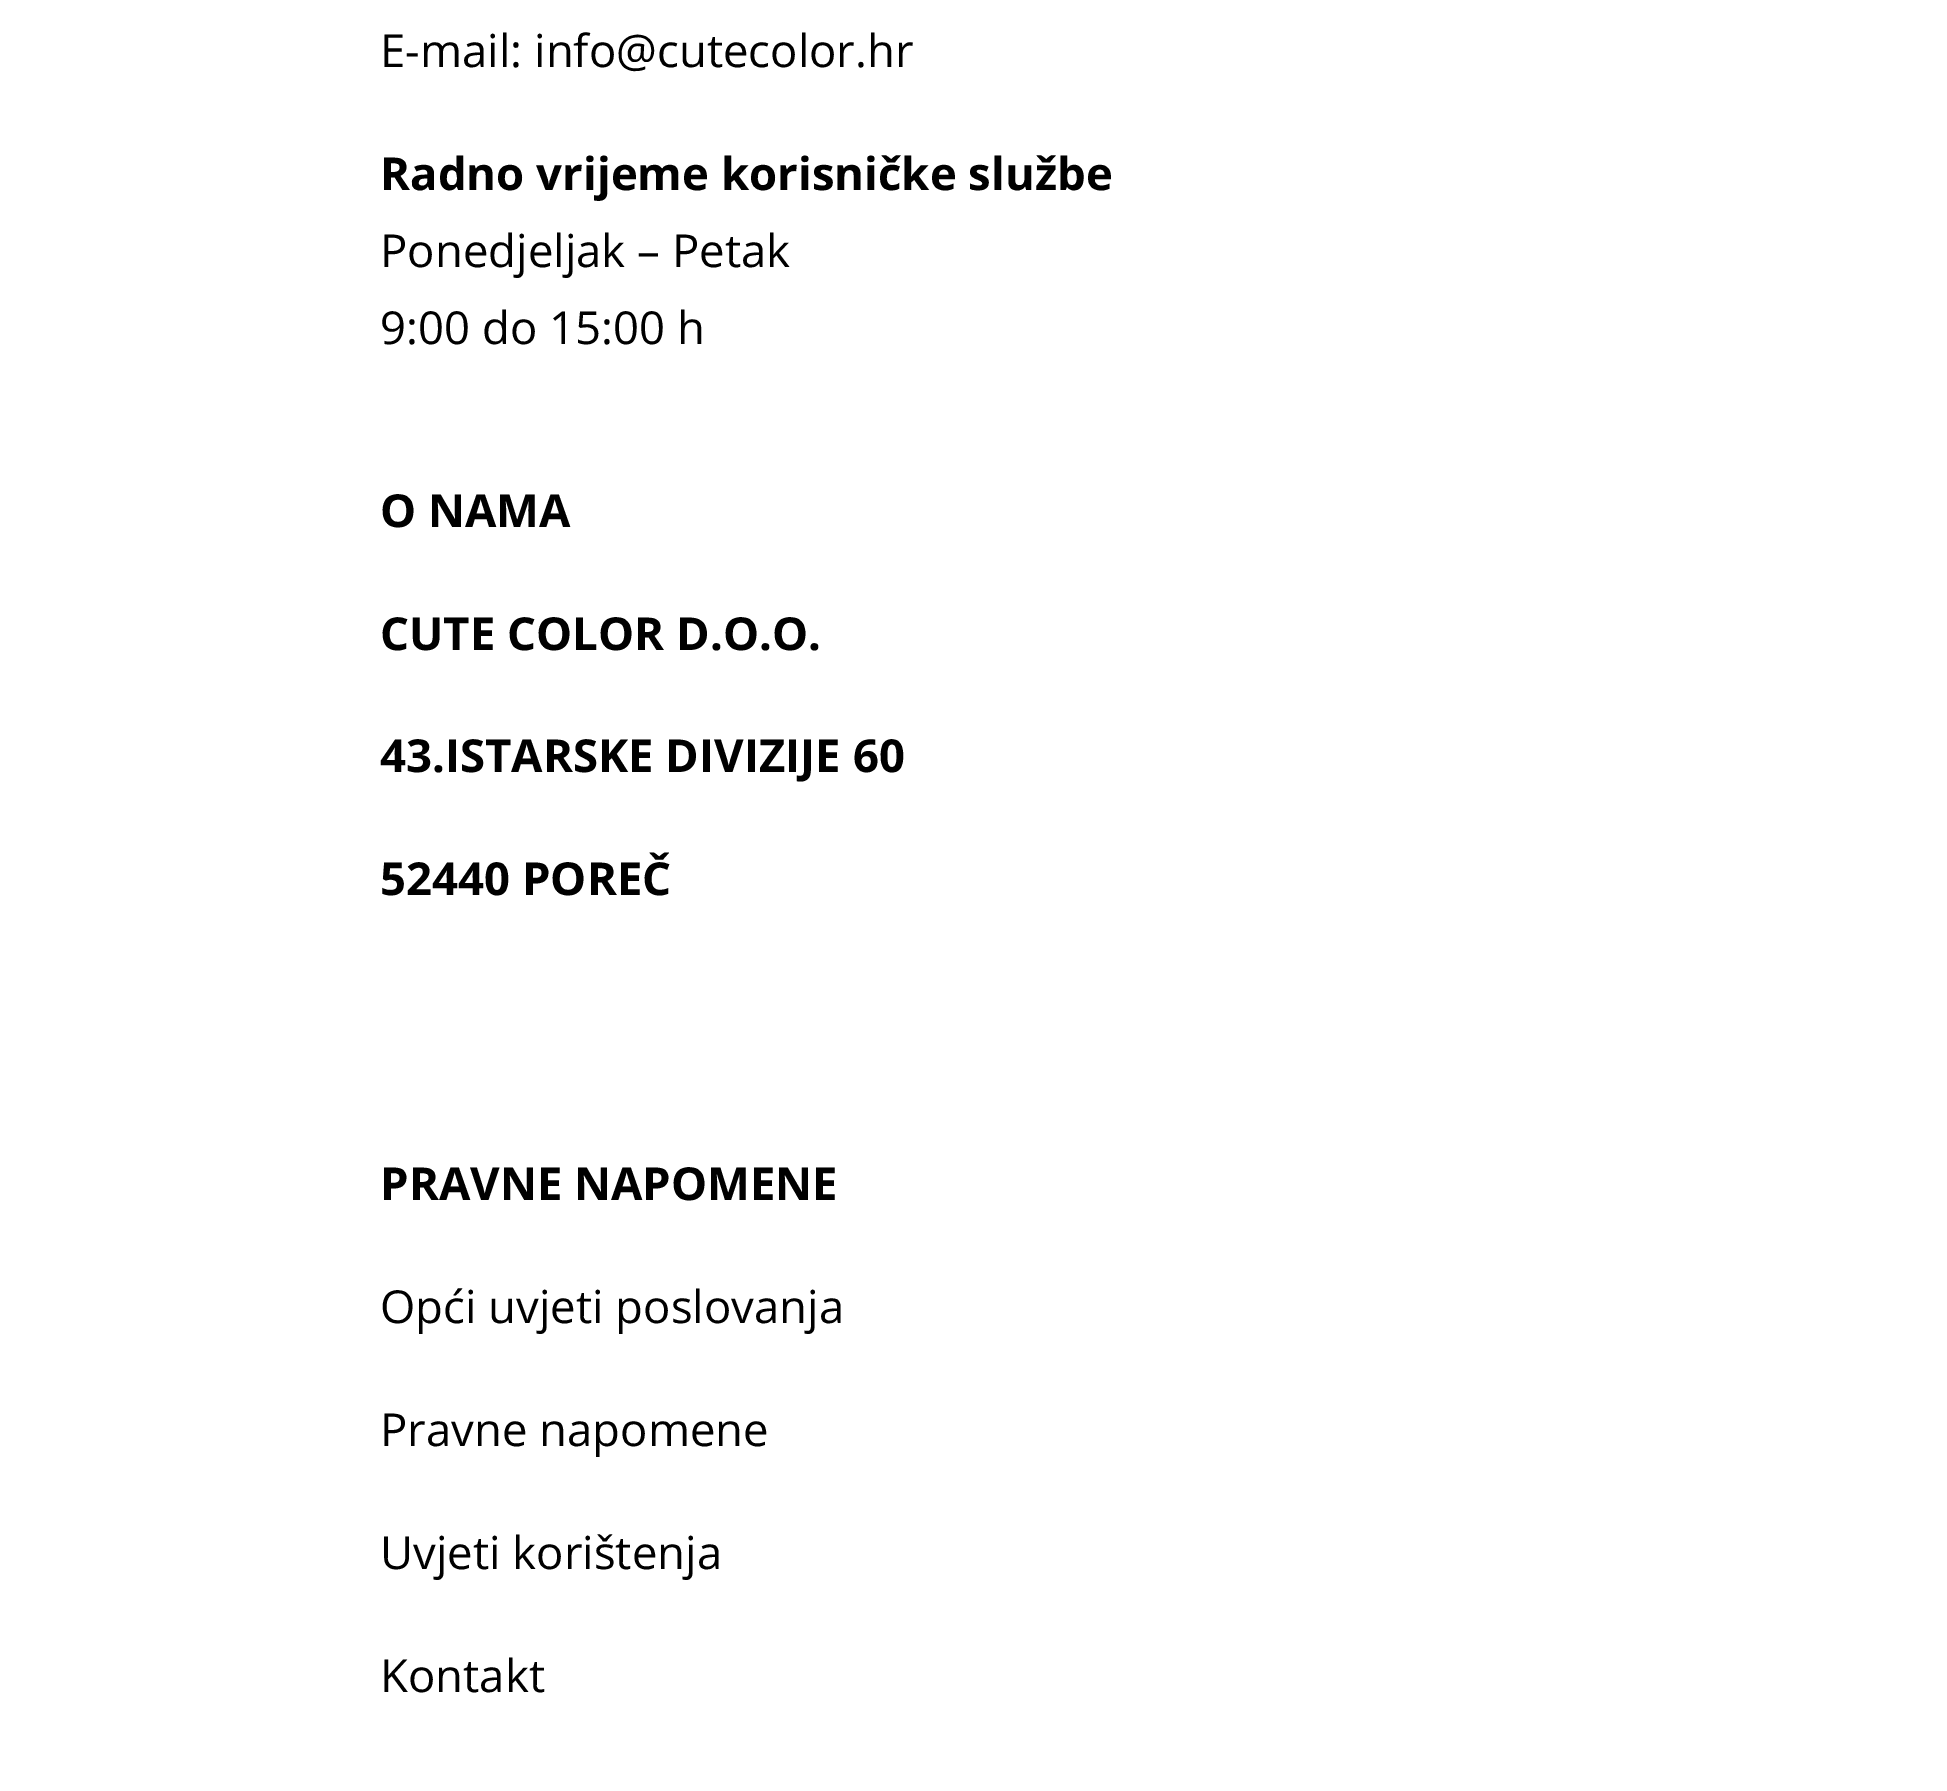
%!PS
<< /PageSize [1947 1791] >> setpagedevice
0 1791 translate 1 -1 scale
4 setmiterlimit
1 setgray
0 0 1947 1791 rectfill
/OpenSans-Regular [45.5 0 0 -45.5 0 0] selectfont
0 setgray
380 67 moveto (E-mail: info@cutecolor.hr) show
/OpenSans-Bold [45.5 0 0 -45.5 0 0] selectfont
380 190 moveto (Radno vrijeme korisničke službe) show
/OpenSans-Regular [45.5 0 0 -45.5 0 0] selectfont
380 267 moveto (Ponedjeljak – Petak) show
380 344 moveto (9:00 do 15:00 h) show
/OpenSans-Bold [45.5 0 0 -45.5 0 0] selectfont
380 527 moveto (O NAMA) show
380 650 moveto (CUTE COLOR D.O.O.) show
380 772 moveto (43.ISTARSKE DIVIZIJE 60) show
380 895 moveto (52440 POREČ) show
380 1200 moveto (PRAVNE NAPOMENE) show
/OpenSans-Regular [45.5 0 0 -45.5 0 0] selectfont
380 1323 moveto (Opći uvjeti poslovanja) show
380 1446 moveto (Pravne napomene) show
380 1569 moveto (Uvjeti korištenja) show
380 1692 moveto (Kontakt) show
showpage
